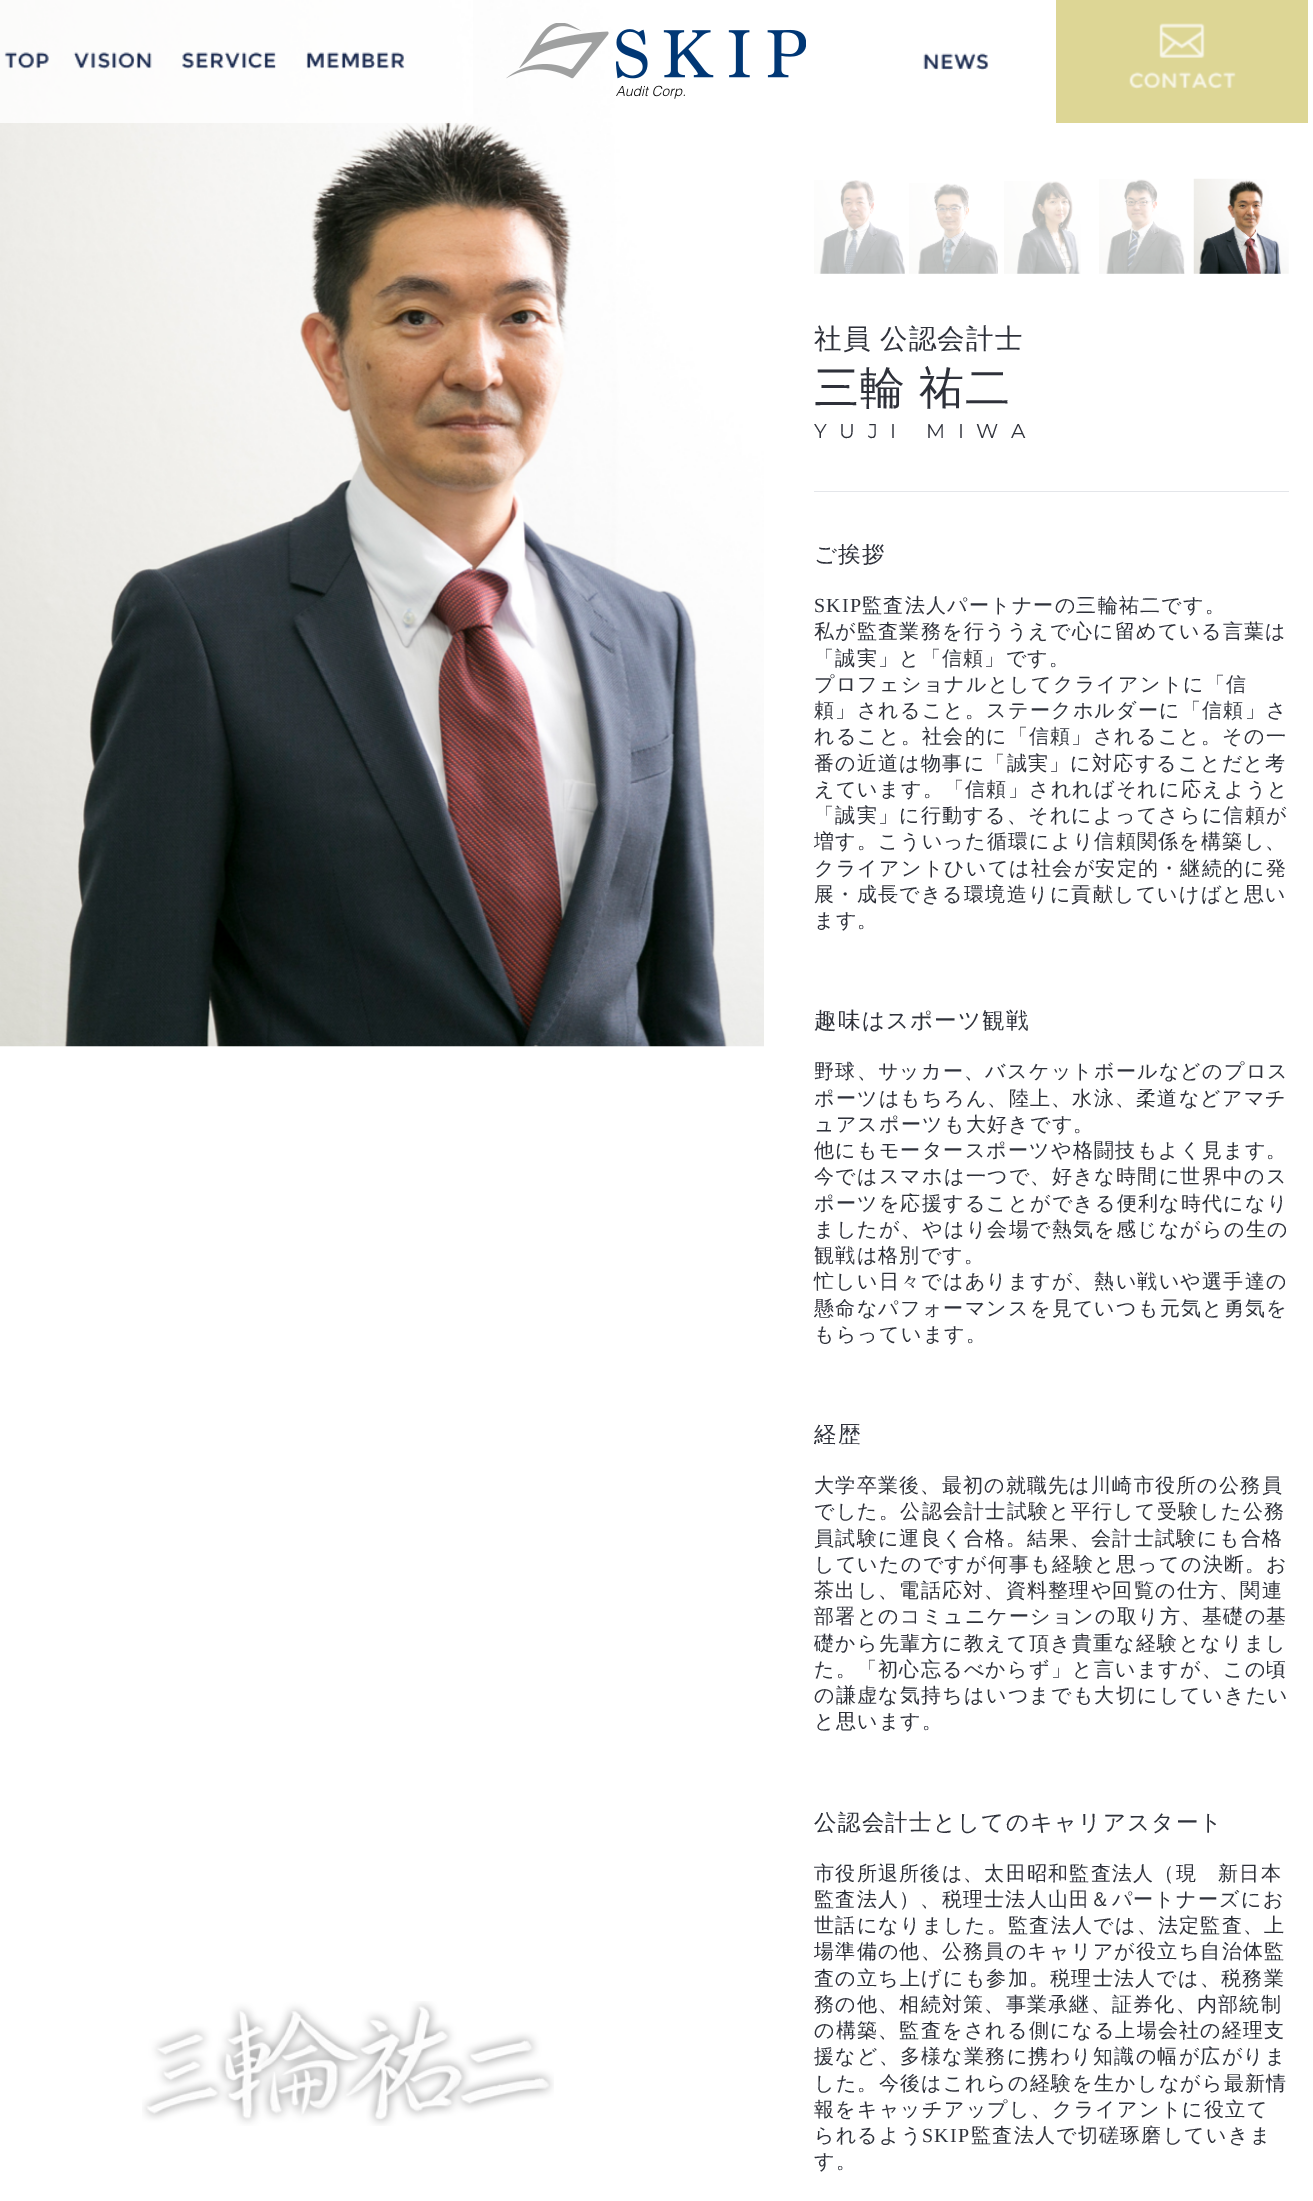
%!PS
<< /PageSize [1313 2201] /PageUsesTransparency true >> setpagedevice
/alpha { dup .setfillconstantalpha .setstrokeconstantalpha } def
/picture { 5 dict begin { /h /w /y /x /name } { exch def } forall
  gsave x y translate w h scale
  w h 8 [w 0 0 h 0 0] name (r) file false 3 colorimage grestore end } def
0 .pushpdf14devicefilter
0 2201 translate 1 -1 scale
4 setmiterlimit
1 setgray
0 0 1313 2201 rectfill
(img8.rgb) 0 0 764 1047 picture
0.8 alpha
0 0 473 123 rectfill
1 alpha
(img1.rgb) 4 52 45 17 picture
(img2.rgb) 73 52 79 17 picture
(img3.rgb) 182 52 94 17 picture
(img4.rgb) 306 52 99 17 picture
(img5.rgb) 506 23 300 76 picture
(img6.rgb) 923 53 66 17 picture
0.867 0.839 0.584 setrgbcolor
1056 0 252 123 rectfill
(img7.rgb) 1129 23 107 66 picture
(img9.rgb) 142 2001 412 125 picture
(img10.rgb) 814 180 91 94 picture
(img11.rgb) 909 183 89 91 picture
(img12.rgb) 1004 181 77 93 picture
(img13.rgb) 1099 179 86 95 picture
(img14.rgb) 1193 178 96 96 picture
/WenQuanYiZenHei-Medium [27.5 0 0 -27.5 0 0] selectfont
0.18 0.192 0.227 setrgbcolor
814 348 moveto -1 0 32 1.25 0 (社員 公認会計士) awidthshow
/WenQuanYiZenHei-Medium [45 0 0 -45 0 0] selectfont
814 403 moveto -2 0 32 1.25 0 (三輪 祐二) awidthshow
/Montserrat-Regular [20 0 0 -20 0 0] selectfont
814 438 moveto 12.5 0 (YUJI MIWA) ashow
0.894 0.902 0.918 setrgbcolor
814 491 475 1 rectfill
/WenQuanYiZenHei-Medium [22.5 0 0 -22.5 0 0] selectfont
0.18 0.192 0.227 setrgbcolor
814 562 moveto 1.25 0 (ご挨拶) ashow
/LiberationSerif-Regular [20 0 0 -20 0 0] selectfont
814 612 moveto 1.25 0 (SKIP) ashow
/WenQuanYiZenHei-Medium [20 0 0 -20 0 0] selectfont
862 612 moveto 1.25 0 (監査法人パートナーの三輪祐二です。) ashow
814 638 moveto 1.25 0 (私が監査業務を行ううえで心に留めている言葉は) ashow
814 665 moveto 1.25 0 (「誠実」と「信頼」です。) ashow
814 691 moveto 1.25 0 (プロフェショナルとしてクライアントに「信) ashow
814 717 moveto 1.25 0 (頼」されること。ステークホルダーに「信頼」さ) ashow
814 743 moveto 1.25 0 (れること。社会的に「信頼」されること。その一) ashow
814 770 moveto 1.25 0 (番の近道は物事に「誠実」に対応することだと考) ashow
814 796 moveto 1.25 0 (えています。「信頼」されればそれに応えようと) ashow
814 822 moveto 1.25 0 (「誠実」に行動する、それによってさらに信頼が) ashow
814 848 moveto 1.25 0 (増す。こういった循環により信頼関係を構築し、) ashow
814 875 moveto 1.25 0 (クライアントひいては社会が安定的・継続的に発) ashow
814 901 moveto 1.25 0 (展・成長できる環境造りに貢献していけばと思い) ashow
814 927 moveto 1.25 0 (ます。) ashow
/WenQuanYiZenHei-Medium [22.5 0 0 -22.5 0 0] selectfont
814 1028 moveto 1.25 0 (趣味はスポーツ観戦) ashow
/WenQuanYiZenHei-Medium [20 0 0 -20 0 0] selectfont
814 1078 moveto 1.25 0 (野球、サッカー、バスケットボールなどのプロス) ashow
814 1105 moveto 1.25 0 (ポーツはもちろん、陸上、水泳、柔道などアマチ) ashow
814 1131 moveto 1.25 0 (ュアスポーツも大好きです。) ashow
814 1157 moveto 1.25 0 (他にもモータースポーツや格闘技もよく見ます。) ashow
814 1183 moveto 1.25 0 (今ではスマホは一つで、好きな時間に世界中のス) ashow
814 1210 moveto 1.25 0 (ポーツを応援することができる便利な時代になり) ashow
814 1236 moveto 1.25 0 (ましたが、やはり会場で熱気を感じながらの生の) ashow
814 1262 moveto 1.25 0 (観戦は格別です。) ashow
814 1288 moveto 1.25 0 (忙しい日々ではありますが、熱い戦いや選手達の) ashow
814 1315 moveto 1.25 0 (懸命なパフォーマンスを見ていつも元気と勇気を) ashow
814 1341 moveto 1.25 0 (もらっています。) ashow
/WenQuanYiZenHei-Medium [22.5 0 0 -22.5 0 0] selectfont
814 1442 moveto 1.25 0 (経歴) ashow
/WenQuanYiZenHei-Medium [20 0 0 -20 0 0] selectfont
814 1492 moveto 1.25 0 (大学卒業後、最初の就職先は川崎市役所の公務員) ashow
814 1518 moveto 1.25 0 (でした。公認会計士試験と平行して受験した公務) ashow
814 1545 moveto 1.25 0 (員試験に運良く合格。結果、会計士試験にも合格) ashow
814 1571 moveto 1.25 0 (していたのですが何事も経験と思っての決断。お) ashow
814 1597 moveto 1.25 0 (茶出し、電話応対、資料整理や回覧の仕方、関連) ashow
814 1623 moveto 1.25 0 (部署とのコミュニケーションの取り方、基礎の基) ashow
814 1650 moveto 1.25 0 (礎から先輩方に教えて頂き貴重な経験となりまし) ashow
814 1676 moveto 1.25 0 (た。「初心忘るべからず」と言いますが、この頃) ashow
814 1702 moveto 1.25 0 (の謙虚な気持ちはいつまでも大切にしていきたい) ashow
814 1728 moveto 1.25 0 (と思います。) ashow
/WenQuanYiZenHei-Medium [22.5 0 0 -22.5 0 0] selectfont
814 1830 moveto 1.25 0 (公認会計士としてのキャリアスタート) ashow
/WenQuanYiZenHei-Medium [20 0 0 -20 0 0] selectfont
814 1880 moveto 1.25 0 (市役所退所後は、太田昭和監査法人（現　新日本) ashow
814 1906 moveto 1.25 0 (監査法人）、税理士法人山田＆パートナーズにお) ashow
814 1932 moveto 1.25 0 (世話になりました。監査法人では、法定監査、上) ashow
814 1958 moveto 1.25 0 (場準備の他、公務員のキャリアが役立ち自治体監) ashow
814 1985 moveto 1.25 0 (査の立ち上げにも参加。税理士法人では、税務業) ashow
814 2011 moveto 1.25 0 (務の他、相続対策、事業承継、証券化、内部統制) ashow
814 2037 moveto 1.25 0 (の構築、監査をされる側になる上場会社の経理支) ashow
814 2063 moveto 1.25 0 (援など、多様な業務に携わり知識の幅が広がりま) ashow
814 2090 moveto 1.25 0 (した。今後はこれらの経験を生かしながら最新情) ashow
814 2116 moveto 1.25 0 (報をキャッチアップし、クライアントに役立て) ashow
814 2142 moveto 1.25 0 (られるよう) ashow
/LiberationSerif-Regular [20 0 0 -20 0 0] selectfont
922 2142 moveto 1.25 0 (SKIP) ashow
/WenQuanYiZenHei-Medium [20 0 0 -20 0 0] selectfont
971 2142 moveto 1.25 0 (監査法人で切磋琢磨していきま) ashow
814 2168 moveto 1.25 0 (す。) ashow
.poppdf14devicefilter showpage
